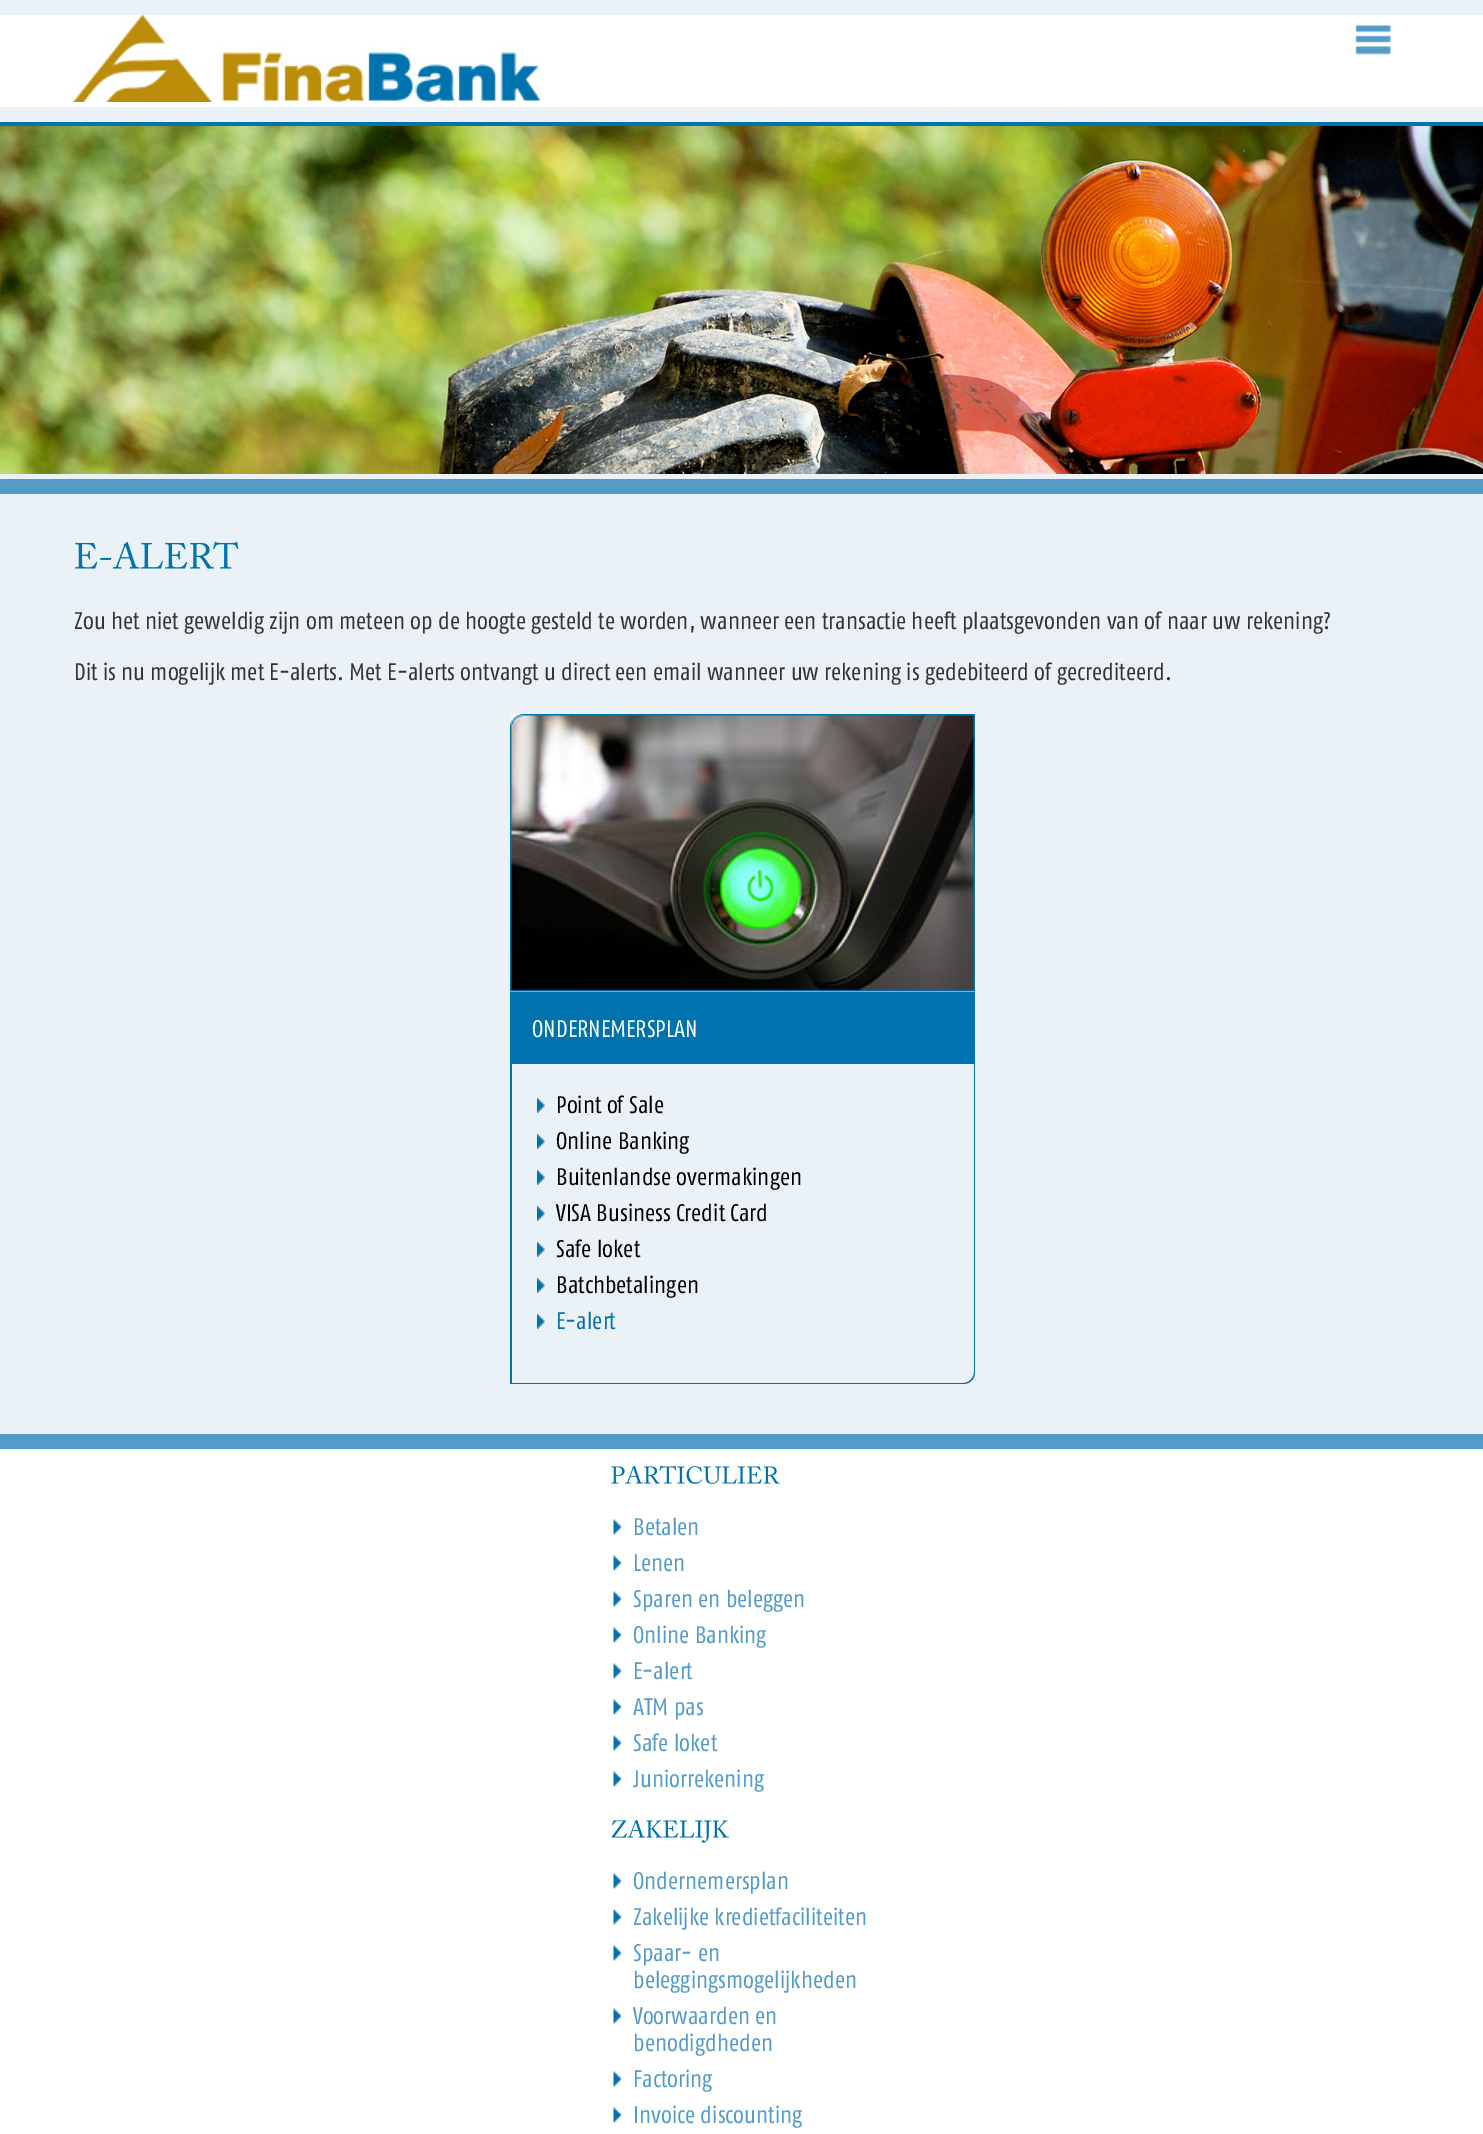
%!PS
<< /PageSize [1483 2134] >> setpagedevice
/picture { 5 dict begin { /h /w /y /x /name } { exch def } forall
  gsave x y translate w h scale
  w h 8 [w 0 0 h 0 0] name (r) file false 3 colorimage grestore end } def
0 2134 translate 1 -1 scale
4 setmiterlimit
0.918 0.945 0.969 setrgbcolor
0 0 1483 2134 rectfill
1 setgray
0 15 1483 92 rectfill
(img1.rgb) 73 15 467 87 picture
(img2.rgb) 1355 25 36 30 picture
0.325 0.612 0.788 setrgbcolor
0 479 1483 15 rectfill
0 0.451 0.682 setrgbcolor
0 122 1483 4 rectfill
(img3.rgb) 0 126 1483 348 picture
(img4.rgb) 75 541 164 28 picture
/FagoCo-Medium [24 0 0 -24 0 0] selectfont
0.2 setgray
74 629 moveto (Zou het niet geweldig zijn om meteen op de hoogte gesteld te worden, wanneer een transactie heeft plaatsgevonden van of naar uw rekening?) show
74 680 moveto (Dit is nu mogelijk met E-alerts. Met E-alerts ontvangt u direct een email wanneer uw rekening is gedebiteerd of gecrediteerd.) show
(img5.rgb) 510 714 465 278 picture
0 0.451 0.682 setrgbcolor
510 992 465 72 rectfill
1 setgray
532 1037 moveto (ONDERNEMERSPLAN) show
0 0.451 0.682 setrgbcolor
newpath 510 1064 moveto 975 1064 lineto 975 1372 lineto 975 1379 970 1384 963 1384 curveto 510 1384 lineto closepath 512 1064 moveto 974 1064 lineto 974 1372 lineto 974 1378 969 1383 963 1383 curveto 512 1383 lineto closepath eofill
(img6.rgb) 537 1098 8 15 picture
0 setgray
556 1113 moveto (Point of Sale) show
(img6.rgb) 537 1134 8 15 picture
556 1149 moveto (Online Banking) show
(img6.rgb) 537 1170 8 15 picture
556 1185 moveto (Buitenlandse overmakingen) show
(img6.rgb) 537 1206 8 15 picture
556 1221 moveto (VISA Business Credit Card) show
(img6.rgb) 537 1242 8 15 picture
556 1257 moveto (Safe loket) show
(img6.rgb) 537 1278 8 15 picture
556 1293 moveto (Batchbetalingen) show
(img6.rgb) 537 1314 8 15 picture
0 0.451 0.682 setrgbcolor
556 1329 moveto (E-alert) show
1 setgray
0 1449 1483 685 rectfill
0.325 0.612 0.788 setrgbcolor
0 1434 1483 15 rectfill
(img7.rgb) 611 1465 169 19 picture
(img8.rgb) 613 1519 9 16 picture
0.325 0.608 0.788 setrgbcolor
633 1535 moveto (Betalen) show
(img8.rgb) 613 1555 9 16 picture
633 1571 moveto (Lenen) show
(img8.rgb) 613 1591 9 16 picture
633 1607 moveto (Sparen en beleggen) show
(img8.rgb) 613 1627 9 16 picture
633 1643 moveto (Online Banking) show
(img8.rgb) 613 1663 9 16 picture
633 1679 moveto (E-alert) show
(img8.rgb) 613 1699 9 16 picture
633 1715 moveto (ATM pas) show
(img8.rgb) 613 1735 9 16 picture
633 1751 moveto (Safe loket) show
(img8.rgb) 613 1771 9 16 picture
633 1787 moveto (Juniorrekening) show
(img9.rgb) 611 1819 118 24 picture
(img8.rgb) 613 1873 9 16 picture
633 1889 moveto (Ondernemersplan) show
(img8.rgb) 613 1909 9 16 picture
633 1925 moveto (Zakelijke kredietfaciliteiten) show
(img8.rgb) 613 1945 9 16 picture
633 1961 moveto (Spaar- en) show
633 1988 moveto (beleggingsmogelijkheden) show
(img8.rgb) 613 2008 9 16 picture
633 2024 moveto (Voorwaarden en) show
633 2051 moveto (benodigdheden) show
(img8.rgb) 613 2071 9 16 picture
633 2087 moveto (Factoring) show
(img8.rgb) 613 2107 9 16 picture
633 2123 moveto (Invoice discounting) show
showpage
